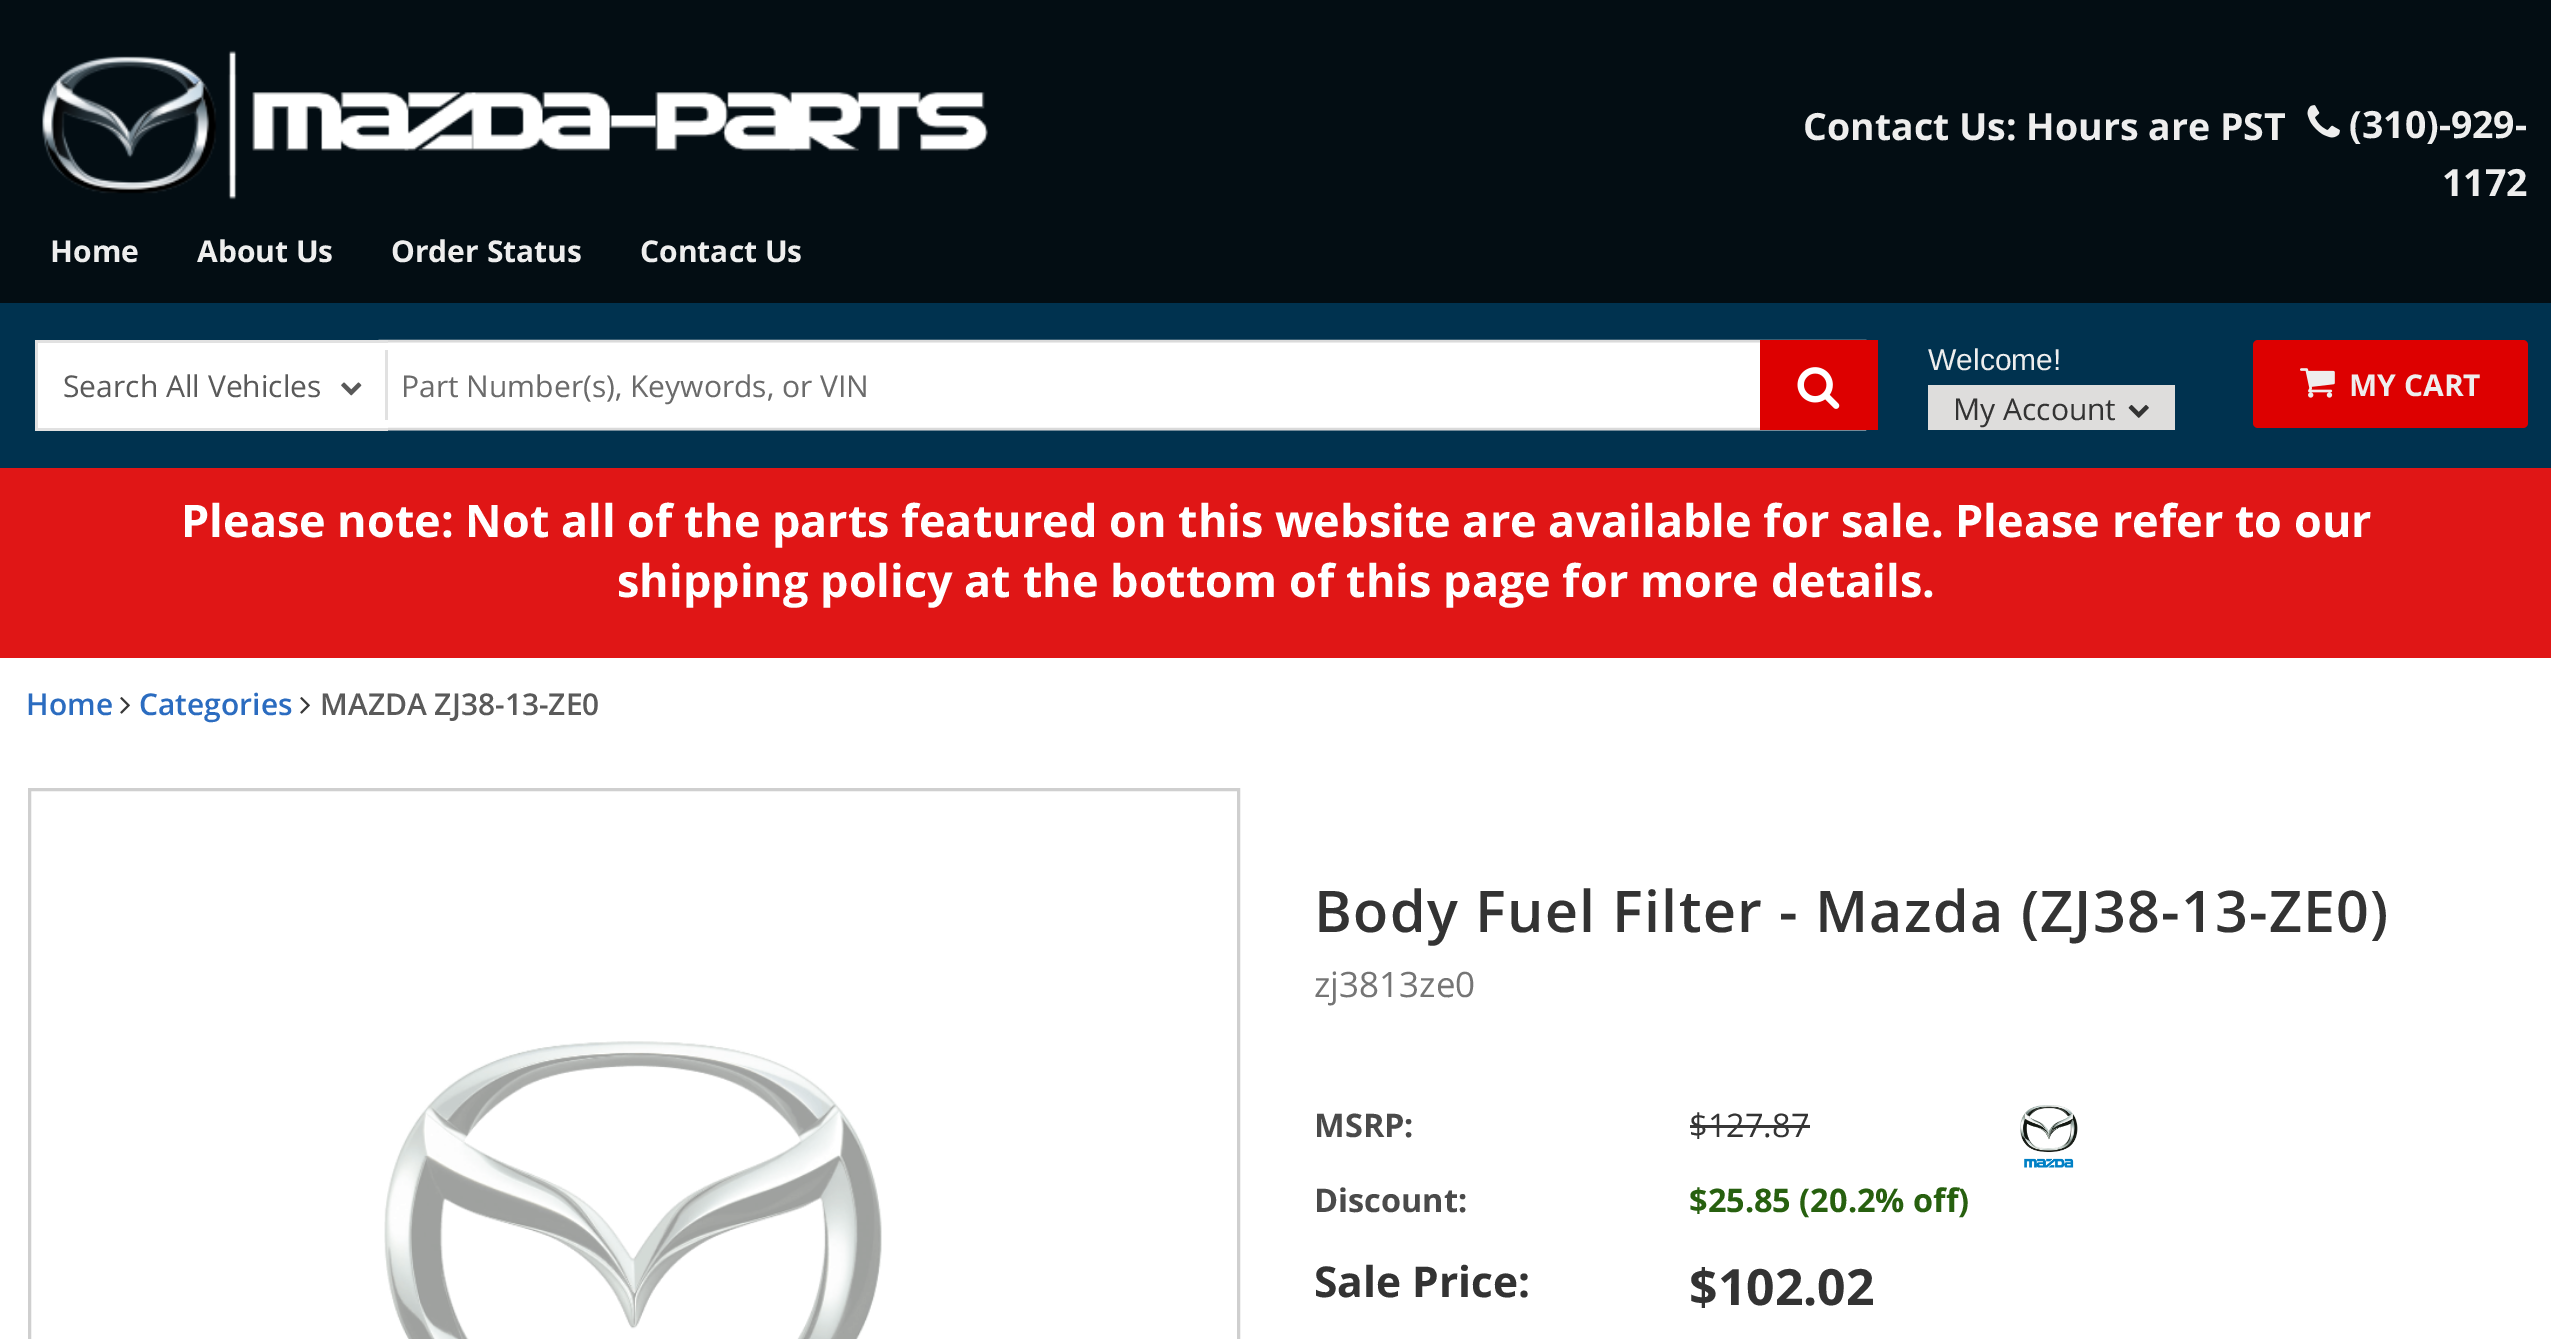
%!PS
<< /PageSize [2551 1339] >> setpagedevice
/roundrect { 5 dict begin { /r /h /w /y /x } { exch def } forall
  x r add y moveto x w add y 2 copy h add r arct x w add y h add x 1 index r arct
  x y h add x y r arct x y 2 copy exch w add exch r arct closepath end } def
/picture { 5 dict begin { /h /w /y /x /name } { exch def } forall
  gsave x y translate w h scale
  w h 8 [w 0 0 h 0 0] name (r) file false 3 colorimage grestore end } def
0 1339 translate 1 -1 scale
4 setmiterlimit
1 setgray
0 0 2551 1339 rectfill
0.012 0.051 0.075 setrgbcolor
0 0 2551 303 rectfill
/OpenSans-Bold [37.5 0 0 -37.5 0 0] selectfont
0.933 setgray
1803 140 moveto (Contact Us: Hours are PST) show
(img1.rgb) 2307 105 33 33 picture
2349 138 moveto (\(310\)-929-) show
2442 196 moveto (1172) show
(img2.rgb) 42 50 946 150 picture
/OpenSans-Bold [30 0 0 -30 0 0] selectfont
50 262 moveto (Home) show
197 262 moveto (About Us) show
391 262 moveto (Order Status) show
640 262 moveto (Contact Us) show
0 0.196 0.31 setrgbcolor
0 303 2551 165 rectfill
1 setgray
388 342 1372 86 rectfill
0.855 setgray
2.5 setlinewidth
newpath 375.5 343 moveto 377 342 378.5 341 380 341 curveto 1865 341 lineto 1866.5 341 1868 342 1869.5 343 curveto 1870.5 344.5 1871 346 1871 347.5 curveto 1871 422.5 lineto 1871 424 1870.5 425.5 1869.5 427 curveto 1868 428 1866.5 429 1865 429 curveto 380 429 lineto 378.5 429 377 428 375.5 427 curveto stroke
1 setgray
38 343 350 85 rectfill
0.882 setgray
35 340 353 3 rectfill
35 428 353 3 rectfill
35 340 3 90 rectfill
/OpenSans-Regular [30 0 0 -30 0 0] selectfont
0.353 setgray
63 397 moveto (Search All Vehicles) show
(img3.rgb) 341 382 21 14 picture
0.882 setgray
385 350 3 70 rectfill
0.42 setgray
401 397 moveto (Part Number\(s\), Keywords, or VIN) show
0.867 0 0 setrgbcolor
1760 340 118 90 rectfill
(img4.rgb) 1797 367 43 42 picture
/LiberationSans-Regular [30 0 0 -30 0 0] selectfont
0.933 setgray
1928 370 moveto (Welcome!) show
0.871 0.867 0.863 setrgbcolor
1928 385 247 45 rectfill
/OpenSans-Regular [30 0 0 -30 0 0] selectfont
0.2 setgray
1953 420 moveto (My Account) show
(img5.rgb) 2128 405 21 13 picture
0.867 0 0 setrgbcolor
2253 340 275 88 5 roundrect fill
(img6.rgb) 2300 368 35 30 picture
/OpenSans-Bold [30 0 0 -30 0 0] selectfont
0.933 setgray
2349 396 moveto (MY CART) show
0.878 0.086 0.086 setrgbcolor
0 468 2551 190 rectfill
/OpenSans-Bold [45 0 0 -45 0 0] selectfont
1 setgray
181 537 moveto (Please note: Not all of the parts featured on this website are available for sale. Please refer to our) show
617 597 moveto (shipping policy at the bottom of this page for more details.) show
/OpenSans-SemiBold [30 0 0 -30 0 0] selectfont
0.169 0.424 0.753 setrgbcolor
26 715 moveto (Home) show
(img7.rgb) 120 697 10 17 picture
139 715 moveto (Categories) show
(img7.rgb) 300 697 10 17 picture
0.353 setgray
320 715 moveto (MAZDA ZJ38-13-ZE0) show
0.812 setgray
3 setlinewidth
29.5 789.5 1209 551 rectstroke
(img8.rgb) 384 1041 498 298 picture
/OpenSans-SemiBold [57.5 0 0 -57.5 0 0] selectfont
0.2 setgray
1314 932 moveto 1.25 0 (Body Fuel Filter - Mazda \(ZJ38-13-ZE0\)) ashow
/OpenSans-Regular [35 0 0 -35 0 0] selectfont
0.459 setgray
1314 997 moveto (zj3813ze0) show
/OpenSans-Bold [32.5 0 0 -32.5 0 0] selectfont
0.29 setgray
1314 1137 moveto (MSRP:) show
/OpenSans-Regular [32.5 0 0 -32.5 0 0] selectfont
0.2 setgray
1689 1137 moveto ($127.87) show
0.22 setgray
1690 1125 120 3 rectfill
/OpenSans-Bold [32.5 0 0 -32.5 0 0] selectfont
0.29 setgray
1314 1212 moveto (Discount:) show
0.153 0.376 0.059 setrgbcolor
1689 1212 moveto ($25.85 \(20.2% off\)) show
/OpenSans-Bold [42.5 0 0 -42.5 0 0] selectfont
0.2 setgray
1314 1297 moveto (Sale Price:) show
/OpenSans-Bold [50 0 0 -50 0 0] selectfont
1689 1305 moveto ($102.02) show
(img9.rgb) 2020 1105 58 63 picture
showpage
